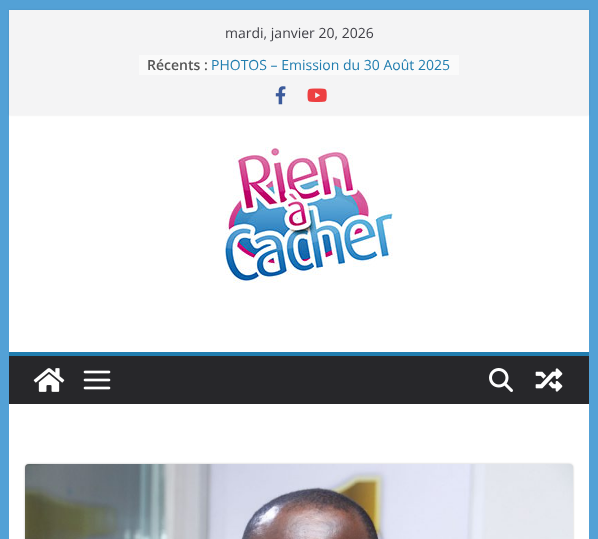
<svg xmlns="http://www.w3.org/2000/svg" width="598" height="539">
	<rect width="100%" height="100%" fill="#53A1D6" />
	<rect x="9" y="115" width="580" height="237" fill="#FFFFFF" />
	<rect x="9" y="10" width="580" height="105" fill="#000000" fill-opacity="0.1" filter="blur(1px)" />
	<rect x="9" y="10" width="580" height="105" fill="#F4F4F5" />
	<text x="225" y="38" font-family="Open Sans" font-size="14" fill="#3F3F46">mardi, janvier 20, 2026</text>
	<rect x="139" y="55" width="320" height="20" fill="#FAFAFA" />
	<text x="147" y="70" font-family="Open Sans" font-size="14" font-weight="600" fill="#555555">Récents :</text>
	<text x="211" y="70" font-family="Open Sans" font-size="14" fill="#207DAF">PHOTOS – Emission du 30 Août 2025</text>
	<image x="275" y="86" width="11" height="19" href="assets/img1.png" />
	<image x="307" y="88" width="20" height="14" href="assets/img2.png" />
	<image x="225" y="147" width="168" height="136" href="assets/img3.png" />
	<rect x="9" y="356" width="580" height="48" fill="#27272A" />
	<rect x="9" y="352" width="580" height="4" fill="#207DAF" />
	<image x="33" y="368" width="32" height="24" href="assets/img4.png" />
	<image x="83" y="370" width="28" height="20" href="assets/img5.png" />
	<image x="489" y="368" width="24" height="24" href="assets/img6.png" />
	<image x="535" y="368" width="28" height="24" href="assets/img7.png" />
	<rect x="9" y="404" width="580" height="135" fill="#FFFFFF" />
	<rect x="25" y="464" width="548" height="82" rx="4" fill="#000000" fill-opacity="0.24" filter="blur(1px)" />
	<image x="25" y="464" width="548" height="75" href="assets/img8.png" />
</svg>
